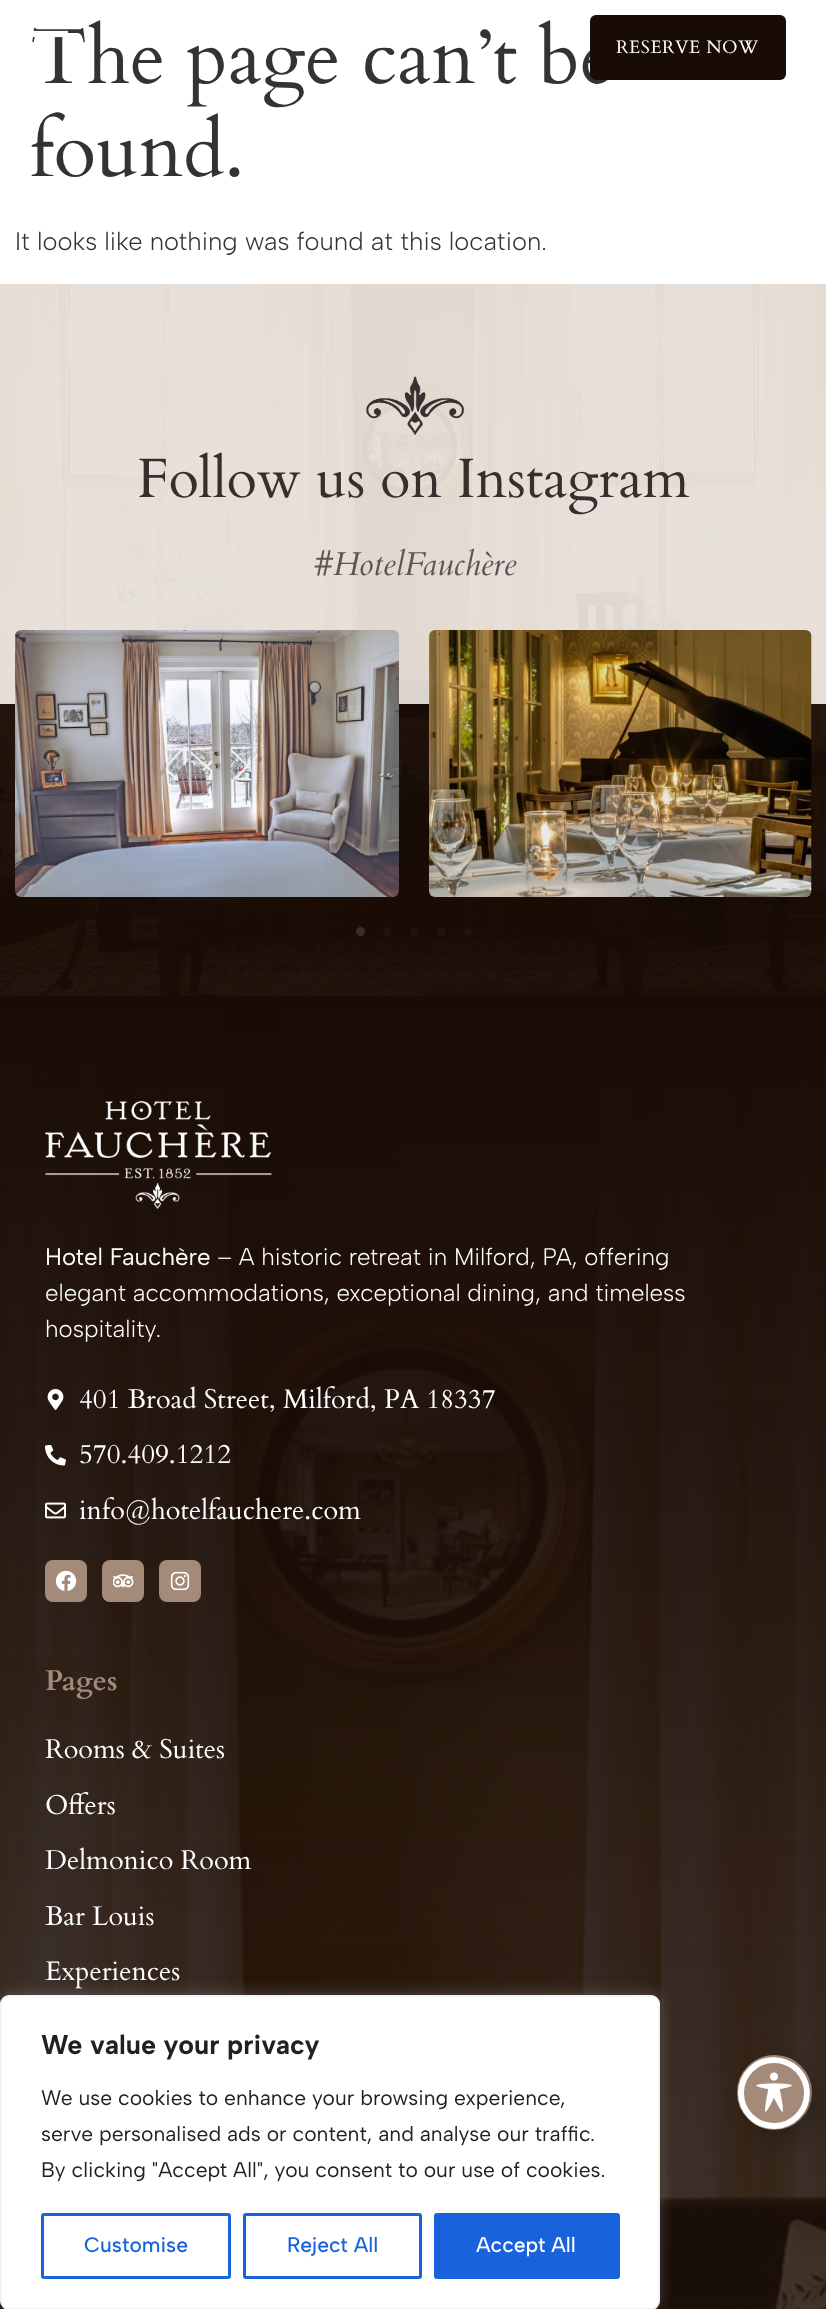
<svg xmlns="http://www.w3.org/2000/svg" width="826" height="2309">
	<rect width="100%" height="100%" fill="#FFFFFF" />
	<g font-family="Cardo" font-size="78" fill="#333333">
		<text x="30" y="83">The page can’t be</text>
		<text x="30" y="176">found.</text>
	</g>
	<text x="15" y="250" font-family="Albert Sans" font-size="25.5" font-weight="300" fill="#333333">It looks like nothing was found at this location.</text>
	<rect x="32" y="31" width="36" height="6" fill="#FFFFFF" />
	<path d="M22.5 31H67.5V37H22.5Z" fill="none" stroke="#FFFFFF" stroke-width="0.2" stroke-linejoin="round" />
	<rect x="590" y="15" width="196" height="65" rx="6" fill="#190C06" />
	<text x="616" y="53" font-family="Cardo" font-size="18" letter-spacing="0.6" fill="#FFFFFF">RESERVE NOW</text>
	<rect x="0" y="284" width="826" height="420" fill="#E7E0DA" />
	<rect x="0" y="704" width="826" height="292" fill="#190C06" />
	<image x="0" y="284" width="826" height="712" href="assets/img1.png" />
	<image x="366" y="376" width="99" height="59" href="assets/img2.png" />
	<text x="137" y="497" font-family="Cardo" font-size="55.5" fill="#382F2D">Follow us on Instagram</text>
	<text x="311" y="575" font-family="Cardo" font-size="33" font-style="italic" fill="#5E5554">#HotelFauchère</text>
	<image x="15" y="630" width="384" height="267" href="assets/img3.png" />
	<image x="429" y="630" width="383" height="267" href="assets/img4.png" />
	<circle cx="360.5" cy="931.5" r="4.5" fill="#382F2D" />
	<circle cx="387.5" cy="931.5" r="4.5" fill="#21140E" />
	<circle cx="414.5" cy="931.5" r="4.5" fill="#21130E" />
	<circle cx="441.5" cy="931.5" r="4.5" fill="#21130E" />
	<circle cx="468.5" cy="931.5" r="4.5" fill="#21140E" />
	<image x="0" y="996" width="826" height="1313" href="assets/img5.png" />
	<image x="45" y="1101" width="227" height="108" href="assets/img6.png" />
	<text x="45" y="1265" font-family="Albert Sans" font-size="24" fill="#FFFFFF">Hotel Fauchère</text>
	<g font-family="Albert Sans" font-size="24" font-weight="300" fill="#FFFFFF">
		<text x="217" y="1265">– A historic retreat in Milford, PA, offering</text>
		<text x="45" y="1301">elegant accommodations, exceptional dining, and timeless</text>
		<text x="45" y="1337">hospitality.</text>
	</g>
	<image x="47" y="1389" width="17" height="21" href="assets/img7.png" />
	<text x="79" y="1408" font-family="Cardo" font-size="27" fill="#FFFFFF">401 Broad Street, Milford, PA 18337</text>
	<image x="45" y="1445" width="21" height="21" href="assets/img8.png" />
	<text x="79" y="1463" font-family="Cardo" font-size="27" fill="#FFFFFF">570.409.1212</text>
	<image x="45" y="1502" width="21" height="17" href="assets/img9.png" />
	<text x="79" y="1519" font-family="Cardo" font-size="27" fill="#FFFFFF">info@hotelfauchere.com</text>
	<rect x="45" y="1560" width="42" height="42" rx="8" fill="#A48A78" />
	<image x="56" y="1571" width="21" height="20" href="assets/img10.png" />
	<rect x="102" y="1560" width="42" height="42" rx="8" fill="#A48A78" />
	<image x="113" y="1574" width="21" height="14" href="assets/img11.png" />
	<rect x="159" y="1560" width="42" height="42" rx="8" fill="#A48A78" />
	<image x="170" y="1571" width="20" height="20" href="assets/img12.png" />
	<text x="45" y="1690" font-family="Cardo" font-size="28.5" font-weight="700" fill="#A48A78">Pages</text>
	<g font-family="Cardo" font-size="27" fill="#FFFFFF">
		<text x="45" y="1758">Rooms &amp; Suites</text>
		<text x="45" y="1814">Offers</text>
		<text x="45" y="1869">Delmonico Room</text>
		<text x="45" y="1925">Bar Louis</text>
		<text x="45" y="1980">Experiences</text>
	</g>
	<rect x="0" y="1994" width="660" height="315" rx="9" fill="#ACABAB" fill-opacity="0.3" filter="blur(7.5px)" />
	<rect x="1" y="1996" width="658" height="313" rx="8" fill="#FFFFFF" stroke="#F4F4F4" stroke-width="2" />
	<text x="41" y="2054" font-family="Albert Sans" font-size="27" font-weight="700" fill="#212121">We value your privacy</text>
	<g font-family="Albert Sans" font-size="21" fill="#212121">
		<text x="41" y="2105">We use cookies to enhance your browsing experience,</text>
		<text x="41" y="2141">serve personalised ads or content, and analyse our traffic.</text>
		<text x="41" y="2177">By clicking "Accept All", you consent to our use of cookies.</text>
	</g>
	<rect x="42.5" y="2214.5" width="187" height="63" rx="1.5" fill="none" stroke="#1863DC" stroke-width="3" />
	<text x="84" y="2252" font-family="Albert Sans" font-size="21" font-weight="500" fill="#1863DC">Customise</text>
	<rect x="244.5" y="2214.5" width="176" height="63" rx="1.5" fill="none" stroke="#1863DC" stroke-width="3" />
	<text x="287" y="2252" font-family="Albert Sans" font-size="21" font-weight="500" fill="#1863DC">Reject All</text>
	<rect x="435.5" y="2214.5" width="183" height="63" rx="1.5" fill="#1863DC" stroke="#1863DC" stroke-width="3" />
	<text x="476" y="2252" font-family="Albert Sans" font-size="21" font-weight="500" fill="#FFFFFF">Accept All</text>
	<circle cx="774.5" cy="2092.5" r="36.5" fill="none" stroke="#A48A78" stroke-width="2" />
	<rect x="747" y="2069" width="72" height="72" rx="36" fill="#000000" fill-opacity="0.2" filter="blur(12px)" />
	<circle cx="774" cy="2093" r="33" fill="#A48A78" stroke="#FFFFFF" stroke-width="6" />
	<image x="756" y="2072" width="36" height="40" href="assets/img13.png" />
</svg>
